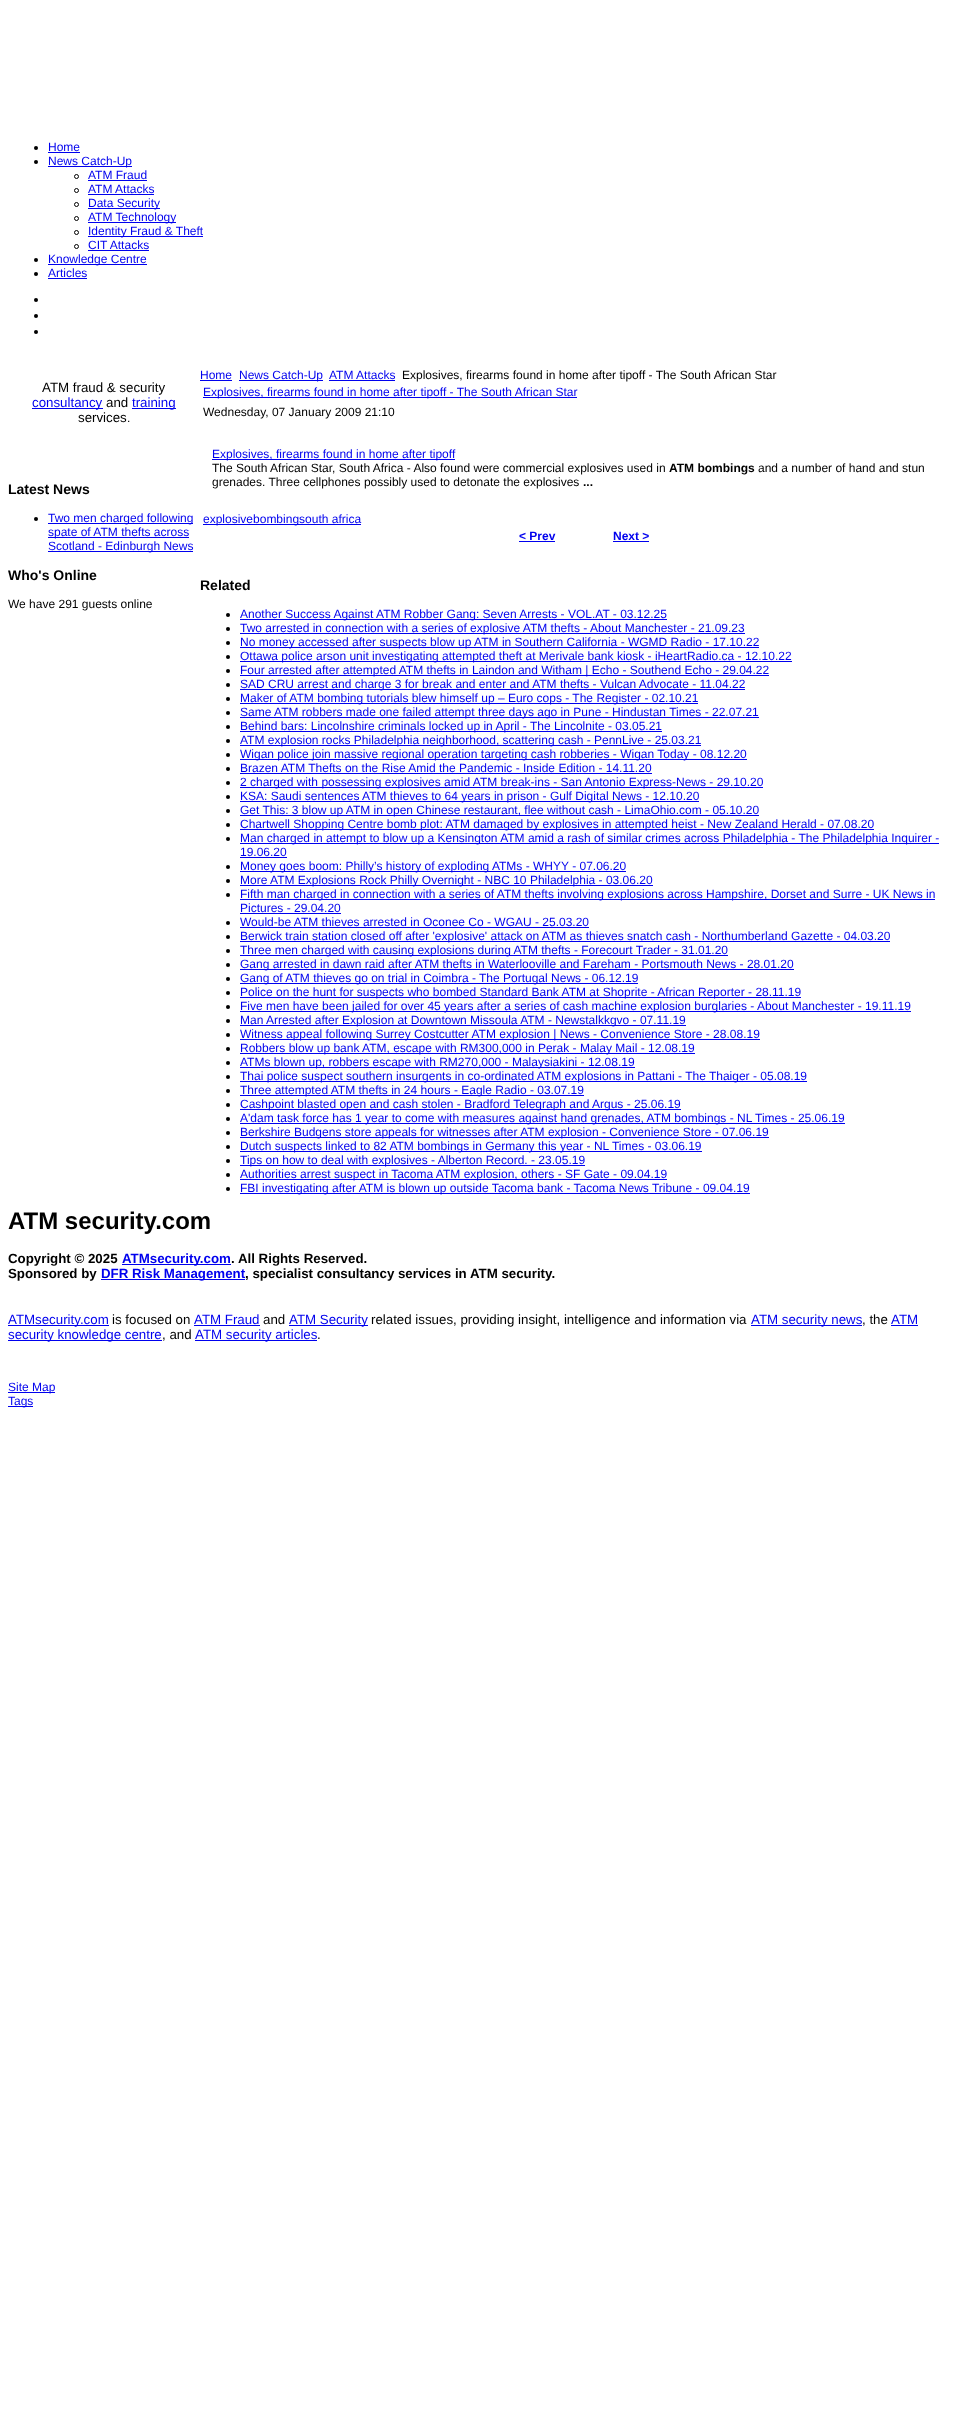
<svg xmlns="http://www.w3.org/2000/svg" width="978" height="2411">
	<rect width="100%" height="100%" fill="#FFFFFF" />
	<circle cx="36" cy="148" r="2" fill="#000000" />
	<text x="48" y="151" font-family="Liberation Sans" font-size="12" fill="#0000EE">Home</text>
	<rect x="48" y="152" width="32" height="1" fill="#0000EE" />
	<circle cx="36" cy="162" r="2" fill="#000000" />
	<rect x="48" y="166" width="84" height="1" fill="#0000EE" />
	<text x="48" y="165" font-family="Liberation Sans" font-size="12" fill="#0000EE">News Catch-Up</text>
	<circle cx="76.5" cy="176.5" r="2" fill="none" stroke="#000000" />
	<text x="88" y="179" font-family="Liberation Sans" font-size="12" fill="#0000EE">ATM Fraud</text>
	<rect x="88" y="180" width="59" height="1" fill="#0000EE" />
	<circle cx="76.5" cy="190.5" r="2" fill="none" stroke="#000000" />
	<text x="88" y="193" font-family="Liberation Sans" font-size="12" fill="#0000EE">ATM Attacks</text>
	<rect x="88" y="194" width="66" height="1" fill="#0000EE" />
	<circle cx="76.5" cy="204.5" r="2" fill="none" stroke="#000000" />
	<rect x="88" y="208" width="72" height="1" fill="#0000EE" />
	<text x="88" y="207" font-family="Liberation Sans" font-size="12" fill="#0000EE">Data Security</text>
	<circle cx="76.5" cy="218.5" r="2" fill="none" stroke="#000000" />
	<rect x="88" y="222" width="88" height="1" fill="#0000EE" />
	<text x="88" y="221" font-family="Liberation Sans" font-size="12" fill="#0000EE">ATM Technology</text>
	<circle cx="76.5" cy="232.5" r="2" fill="none" stroke="#000000" />
	<rect x="88" y="236" width="115" height="1" fill="#0000EE" />
	<text x="88" y="235" font-family="Liberation Sans" font-size="12" fill="#0000EE">Identity Fraud &amp; Theft</text>
	<circle cx="76.5" cy="246.5" r="2" fill="none" stroke="#000000" />
	<text x="88" y="249" font-family="Liberation Sans" font-size="12" fill="#0000EE">CIT Attacks</text>
	<rect x="88" y="250" width="61" height="1" fill="#0000EE" />
	<circle cx="36" cy="260" r="2" fill="#000000" />
	<rect x="48" y="264" width="99" height="1" fill="#0000EE" />
	<text x="48" y="263" font-family="Liberation Sans" font-size="12" fill="#0000EE">Knowledge Centre</text>
	<circle cx="36" cy="274" r="2" fill="#000000" />
	<text x="48" y="277" font-family="Liberation Sans" font-size="12" fill="#0000EE">Articles</text>
	<rect x="48" y="278" width="39" height="1" fill="#0000EE" />
	<circle cx="36" cy="300" r="2" fill="#000000" />
	<circle cx="36" cy="316" r="2" fill="#000000" />
	<circle cx="36" cy="332" r="2" fill="#000000" />
	<text x="42" y="392" font-family="Liberation Sans" font-size="13.3" fill="#000000">ATM fraud &amp; security</text>
	<rect x="32" y="408" width="71" height="1" fill="#0000EE" />
	<text x="32" y="407" font-family="Liberation Sans" font-size="13.3" fill="#0000EE">consultancy</text>
	<text x="106" y="407" font-family="Liberation Sans" font-size="13.3" fill="#000000">and</text>
	<rect x="132" y="408" width="44" height="1" fill="#0000EE" />
	<text x="132" y="407" font-family="Liberation Sans" font-size="13.3" fill="#0000EE">training</text>
	<text x="78" y="422" font-family="Liberation Sans" font-size="13.3" fill="#000000">services</text>
	<text x="127" y="422" font-family="Liberation Sans" font-size="12" fill="#000000">.</text>
	<text x="8" y="494" font-family="Liberation Sans" font-size="14" font-weight="700" fill="#000000">Latest News</text>
	<circle cx="36" cy="519" r="2" fill="#000000" />
	<rect x="48" y="523" width="145" height="1" fill="#0000EE" />
	<text x="48" y="522" font-family="Liberation Sans" font-size="12" fill="#0000EE">Two men charged following</text>
	<rect x="48" y="537" width="141" height="1" fill="#0000EE" />
	<text x="48" y="536" font-family="Liberation Sans" font-size="12" fill="#0000EE">spate of ATM thefts across</text>
	<rect x="48" y="551" width="145" height="1" fill="#0000EE" />
	<text x="48" y="550" font-family="Liberation Sans" font-size="12" fill="#0000EE">Scotland - Edinburgh News</text>
	<text x="8" y="580" font-family="Liberation Sans" font-size="14" font-weight="700" fill="#000000">Who's Online</text>
	<text x="8" y="608" font-family="Liberation Sans" font-size="12" fill="#000000">We have 291 guests online</text>
	<text x="200" y="379" font-family="Liberation Sans" font-size="12" fill="#0000EE">Home</text>
	<rect x="200" y="380" width="32" height="1" fill="#0000EE" />
	<rect x="239" y="380" width="84" height="1" fill="#0000EE" />
	<g font-family="Liberation Sans" font-size="12" fill="#0000EE">
		<text x="239" y="379">News Catch-Up</text>
		<text x="329" y="379">ATM Attacks</text>
	</g>
	<rect x="329" y="380" width="66" height="1" fill="#0000EE" />
	<text x="402" y="379" font-family="Liberation Sans" font-size="12" fill="#000000">Explosives, firearms found in home after tipoff - The South African Star</text>
	<rect x="203" y="397" width="374" height="1" fill="#0000EE" />
	<text x="203" y="396" font-family="Liberation Sans" font-size="12" fill="#0000EE">Explosives, firearms found in home after tipoff - The South African Star</text>
	<text x="203" y="416" font-family="Liberation Sans" font-size="12" fill="#000000">Wednesday, 07 January 2009 21:10</text>
	<rect x="212" y="459" width="243" height="1" fill="#0000EE" />
	<text x="212" y="458" font-family="Liberation Sans" font-size="12" fill="#0000EE">Explosives, firearms found in home after tipoff</text>
	<text x="212" y="472" font-family="Liberation Sans" font-size="12" fill="#000000">The South African Star, South Africa - Also found were commercial explosives used in</text>
	<text x="669" y="472" font-family="Liberation Sans" font-size="12" font-weight="700" fill="#000000">ATM bombings</text>
	<g font-family="Liberation Sans" font-size="12" fill="#000000">
		<text x="758" y="472">and a number of hand and stun</text>
		<text x="212" y="486">grenades. Three cellphones possibly used to detonate the explosives</text>
	</g>
	<text x="583" y="486" font-family="Liberation Sans" font-size="12" font-weight="700" fill="#000000">...</text>
	<rect x="203" y="524" width="158" height="1" fill="#0000EE" />
	<text x="203" y="523" font-family="Liberation Sans" font-size="12" fill="#0000EE">explosivebombingsouth africa</text>
	<text x="519" y="540" font-family="Liberation Sans" font-size="12" font-weight="700" fill="#0000EE">&lt; Prev</text>
	<rect x="519" y="541" width="36" height="1" fill="#0000EE" />
	<text x="613" y="540" font-family="Liberation Sans" font-size="12" font-weight="700" fill="#0000EE">Next &gt;</text>
	<rect x="613" y="541" width="36" height="1" fill="#0000EE" />
	<text x="200" y="590" font-family="Liberation Sans" font-size="14" font-weight="700" fill="#000000">Related</text>
	<circle cx="228" cy="615" r="2" fill="#000000" />
	<rect x="240" y="619" width="427" height="1" fill="#0000EE" />
	<text x="240" y="618" font-family="Liberation Sans" font-size="12" fill="#0000EE">Another Success Against ATM Robber Gang: Seven Arrests - VOL.AT - 03.12.25</text>
	<circle cx="228" cy="629" r="2" fill="#000000" />
	<rect x="240" y="633" width="505" height="1" fill="#0000EE" />
	<text x="240" y="632" font-family="Liberation Sans" font-size="12" fill="#0000EE">Two arrested in connection with a series of explosive ATM thefts - About Manchester - 21.09.23</text>
	<circle cx="228" cy="643" r="2" fill="#000000" />
	<rect x="240" y="647" width="519" height="1" fill="#0000EE" />
	<text x="240" y="646" font-family="Liberation Sans" font-size="12" fill="#0000EE">No money accessed after suspects blow up ATM in Southern California - WGMD Radio - 17.10.22</text>
	<circle cx="228" cy="657" r="2" fill="#000000" />
	<rect x="240" y="661" width="552" height="1" fill="#0000EE" />
	<text x="240" y="660" font-family="Liberation Sans" font-size="12" fill="#0000EE">Ottawa police arson unit investigating attempted theft at Merivale bank kiosk - iHeartRadio.ca - 12.10.22</text>
	<circle cx="228" cy="671" r="2" fill="#000000" />
	<rect x="240" y="675" width="529" height="1" fill="#0000EE" />
	<text x="240" y="674" font-family="Liberation Sans" font-size="12" fill="#0000EE">Four arrested after attempted ATM thefts in Laindon and Witham | Echo - Southend Echo - 29.04.22</text>
	<circle cx="228" cy="685" r="2" fill="#000000" />
	<rect x="240" y="689" width="505" height="1" fill="#0000EE" />
	<text x="240" y="688" font-family="Liberation Sans" font-size="12" fill="#0000EE">SAD CRU arrest and charge 3 for break and enter and ATM thefts - Vulcan Advocate - 11.04.22</text>
	<circle cx="228" cy="699" r="2" fill="#000000" />
	<rect x="240" y="703" width="458" height="1" fill="#0000EE" />
	<text x="240" y="702" font-family="Liberation Sans" font-size="12" fill="#0000EE">Maker of ATM bombing tutorials blew himself up – Euro cops - The Register - 02.10.21</text>
	<circle cx="228" cy="713" r="2" fill="#000000" />
	<rect x="240" y="717" width="519" height="1" fill="#0000EE" />
	<text x="240" y="716" font-family="Liberation Sans" font-size="12" fill="#0000EE">Same ATM robbers made one failed attempt three days ago in Pune - Hindustan Times - 22.07.21</text>
	<circle cx="228" cy="727" r="2" fill="#000000" />
	<rect x="240" y="731" width="422" height="1" fill="#0000EE" />
	<text x="240" y="730" font-family="Liberation Sans" font-size="12" fill="#0000EE">Behind bars: Lincolnshire criminals locked up in April - The Lincolnite - 03.05.21</text>
	<circle cx="228" cy="741" r="2" fill="#000000" />
	<rect x="240" y="745" width="461" height="1" fill="#0000EE" />
	<text x="240" y="744" font-family="Liberation Sans" font-size="12" fill="#0000EE">ATM explosion rocks Philadelphia neighborhood, scattering cash - PennLive - 25.03.21</text>
	<circle cx="228" cy="755" r="2" fill="#000000" />
	<rect x="240" y="759" width="507" height="1" fill="#0000EE" />
	<text x="240" y="758" font-family="Liberation Sans" font-size="12" fill="#0000EE">Wigan police join massive regional operation targeting cash robberies - Wigan Today - 08.12.20</text>
	<circle cx="228" cy="769" r="2" fill="#000000" />
	<text x="240" y="772" font-family="Liberation Sans" font-size="12" fill="#0000EE">Brazen ATM Thefts on the Rise Amid the Pandemic - Inside Edition - 14.11.20</text>
	<rect x="240" y="773" width="412" height="1" fill="#0000EE" />
	<circle cx="228" cy="783" r="2" fill="#000000" />
	<rect x="240" y="787" width="523" height="1" fill="#0000EE" />
	<text x="240" y="786" font-family="Liberation Sans" font-size="12" fill="#0000EE">2 charged with possessing explosives amid ATM break-ins - San Antonio Express-News - 29.10.20</text>
	<circle cx="228" cy="797" r="2" fill="#000000" />
	<rect x="240" y="801" width="459" height="1" fill="#0000EE" />
	<text x="240" y="800" font-family="Liberation Sans" font-size="12" fill="#0000EE">KSA: Saudi sentences ATM thieves to 64 years in prison - Gulf Digital News - 12.10.20</text>
	<circle cx="228" cy="811" r="2" fill="#000000" />
	<rect x="240" y="815" width="519" height="1" fill="#0000EE" />
	<text x="240" y="814" font-family="Liberation Sans" font-size="12" fill="#0000EE">Get This: 3 blow up ATM in open Chinese restaurant, flee without cash - LimaOhio.com - 05.10.20</text>
	<circle cx="228" cy="825" r="2" fill="#000000" />
	<rect x="240" y="829" width="634" height="1" fill="#0000EE" />
	<text x="240" y="828" font-family="Liberation Sans" font-size="12" fill="#0000EE">Chartwell Shopping Centre bomb plot: ATM damaged by explosives in attempted heist - New Zealand Herald - 07.08.20</text>
	<circle cx="228" cy="839" r="2" fill="#000000" />
	<rect x="240" y="843" width="699" height="1" fill="#0000EE" />
	<g font-family="Liberation Sans" font-size="12" fill="#0000EE">
		<text x="240" y="842">Man charged in attempt to blow up a Kensington ATM amid a rash of similar crimes across Philadelphia - The Philadelphia Inquirer -</text>
		<text x="240" y="856">19.06.20</text>
	</g>
	<rect x="240" y="857" width="47" height="1" fill="#0000EE" />
	<circle cx="228" cy="867" r="2" fill="#000000" />
	<rect x="240" y="871" width="386" height="1" fill="#0000EE" />
	<text x="240" y="870" font-family="Liberation Sans" font-size="12" fill="#0000EE">Money goes boom: Philly’s history of exploding ATMs - WHYY - 07.06.20</text>
	<circle cx="228" cy="881" r="2" fill="#000000" />
	<rect x="240" y="885" width="413" height="1" fill="#0000EE" />
	<text x="240" y="884" font-family="Liberation Sans" font-size="12" fill="#0000EE">More ATM Explosions Rock Philly Overnight - NBC 10 Philadelphia - 03.06.20</text>
	<circle cx="228" cy="895" r="2" fill="#000000" />
	<rect x="240" y="899" width="695" height="1" fill="#0000EE" />
	<g font-family="Liberation Sans" font-size="12" fill="#0000EE">
		<text x="240" y="898">Fifth man charged in connection with a series of ATM thefts involving explosions across Hampshire, Dorset and Surre - UK News in</text>
		<text x="240" y="912">Pictures - 29.04.20</text>
	</g>
	<rect x="240" y="913" width="101" height="1" fill="#0000EE" />
	<circle cx="228" cy="923" r="2" fill="#000000" />
	<text x="240" y="926" font-family="Liberation Sans" font-size="12" fill="#0000EE">Would-be ATM thieves arrested in Oconee Co - WGAU - 25.03.20</text>
	<rect x="240" y="927" width="349" height="1" fill="#0000EE" />
	<circle cx="228" cy="937" r="2" fill="#000000" />
	<rect x="240" y="941" width="650" height="1" fill="#0000EE" />
	<text x="240" y="940" font-family="Liberation Sans" font-size="12" fill="#0000EE">Berwick train station closed off after 'explosive' attack on ATM as thieves snatch cash - Northumberland Gazette - 04.03.20</text>
	<circle cx="228" cy="951" r="2" fill="#000000" />
	<rect x="240" y="955" width="488" height="1" fill="#0000EE" />
	<text x="240" y="954" font-family="Liberation Sans" font-size="12" fill="#0000EE">Three men charged with causing explosions during ATM thefts - Forecourt Trader - 31.01.20</text>
	<circle cx="228" cy="965" r="2" fill="#000000" />
	<rect x="240" y="969" width="554" height="1" fill="#0000EE" />
	<text x="240" y="968" font-family="Liberation Sans" font-size="12" fill="#0000EE">Gang arrested in dawn raid after ATM thefts in Waterlooville and Fareham - Portsmouth News - 28.01.20</text>
	<circle cx="228" cy="979" r="2" fill="#000000" />
	<rect x="240" y="983" width="398" height="1" fill="#0000EE" />
	<text x="240" y="982" font-family="Liberation Sans" font-size="12" fill="#0000EE">Gang of ATM thieves go on trial in Coimbra - The Portugal News - 06.12.19</text>
	<circle cx="228" cy="993" r="2" fill="#000000" />
	<rect x="240" y="997" width="561" height="1" fill="#0000EE" />
	<text x="240" y="996" font-family="Liberation Sans" font-size="12" fill="#0000EE">Police on the hunt for suspects who bombed Standard Bank ATM at Shoprite - African Reporter - 28.11.19</text>
	<circle cx="228" cy="1007" r="2" fill="#000000" />
	<rect x="240" y="1011" width="671" height="1" fill="#0000EE" />
	<text x="240" y="1010" font-family="Liberation Sans" font-size="12" fill="#0000EE">Five men have been jailed for over 45 years after a series of cash machine explosion burglaries - About Manchester - 19.11.19</text>
	<circle cx="228" cy="1021" r="2" fill="#000000" />
	<rect x="240" y="1025" width="446" height="1" fill="#0000EE" />
	<text x="240" y="1024" font-family="Liberation Sans" font-size="12" fill="#0000EE">Man Arrested after Explosion at Downtown Missoula ATM - Newstalkkgvo - 07.11.19</text>
	<circle cx="228" cy="1035" r="2" fill="#000000" />
	<rect x="240" y="1039" width="520" height="1" fill="#0000EE" />
	<text x="240" y="1038" font-family="Liberation Sans" font-size="12" fill="#0000EE">Witness appeal following Surrey Costcutter ATM explosion | News - Convenience Store - 28.08.19</text>
	<circle cx="228" cy="1049" r="2" fill="#000000" />
	<rect x="240" y="1053" width="455" height="1" fill="#0000EE" />
	<text x="240" y="1052" font-family="Liberation Sans" font-size="12" fill="#0000EE">Robbers blow up bank ATM, escape with RM300,000 in Perak - Malay Mail - 12.08.19</text>
	<circle cx="228" cy="1063" r="2" fill="#000000" />
	<rect x="240" y="1067" width="395" height="1" fill="#0000EE" />
	<text x="240" y="1066" font-family="Liberation Sans" font-size="12" fill="#0000EE">ATMs blown up, robbers escape with RM270,000 - Malaysiakini - 12.08.19</text>
	<circle cx="228" cy="1077" r="2" fill="#000000" />
	<rect x="240" y="1081" width="567" height="1" fill="#0000EE" />
	<text x="240" y="1080" font-family="Liberation Sans" font-size="12" fill="#0000EE">Thai police suspect southern insurgents in co-ordinated ATM explosions in Pattani - The Thaiger - 05.08.19</text>
	<circle cx="228" cy="1091" r="2" fill="#000000" />
	<rect x="240" y="1095" width="344" height="1" fill="#0000EE" />
	<text x="240" y="1094" font-family="Liberation Sans" font-size="12" fill="#0000EE">Three attempted ATM thefts in 24 hours - Eagle Radio - 03.07.19</text>
	<circle cx="228" cy="1105" r="2" fill="#000000" />
	<rect x="240" y="1109" width="441" height="1" fill="#0000EE" />
	<text x="240" y="1108" font-family="Liberation Sans" font-size="12" fill="#0000EE">Cashpoint blasted open and cash stolen - Bradford Telegraph and Argus - 25.06.19</text>
	<circle cx="228" cy="1119" r="2" fill="#000000" />
	<rect x="240" y="1123" width="605" height="1" fill="#0000EE" />
	<text x="240" y="1122" font-family="Liberation Sans" font-size="12" fill="#0000EE">A'dam task force has 1 year to come with measures against hand grenades, ATM bombings - NL Times - 25.06.19</text>
	<circle cx="228" cy="1133" r="2" fill="#000000" />
	<rect x="240" y="1137" width="529" height="1" fill="#0000EE" />
	<text x="240" y="1136" font-family="Liberation Sans" font-size="12" fill="#0000EE">Berkshire Budgens store appeals for witnesses after ATM explosion - Convenience Store - 07.06.19</text>
	<circle cx="228" cy="1147" r="2" fill="#000000" />
	<rect x="240" y="1151" width="462" height="1" fill="#0000EE" />
	<text x="240" y="1150" font-family="Liberation Sans" font-size="12" fill="#0000EE">Dutch suspects linked to 82 ATM bombings in Germany this year - NL Times - 03.06.19</text>
	<circle cx="228" cy="1161" r="2" fill="#000000" />
	<rect x="240" y="1165" width="345" height="1" fill="#0000EE" />
	<text x="240" y="1164" font-family="Liberation Sans" font-size="12" fill="#0000EE">Tips on how to deal with explosives - Alberton Record. - 23.05.19</text>
	<circle cx="228" cy="1175" r="2" fill="#000000" />
	<rect x="240" y="1179" width="427" height="1" fill="#0000EE" />
	<text x="240" y="1178" font-family="Liberation Sans" font-size="12" fill="#0000EE">Authorities arrest suspect in Tacoma ATM explosion, others - SF Gate - 09.04.19</text>
	<circle cx="228" cy="1189" r="2" fill="#000000" />
	<rect x="240" y="1193" width="510" height="1" fill="#0000EE" />
	<text x="240" y="1192" font-family="Liberation Sans" font-size="12" fill="#0000EE">FBI investigating after ATM is blown up outside Tacoma bank - Tacoma News Tribune - 09.04.19</text>
	<text x="8" y="1229" font-family="Liberation Sans" font-size="24" font-weight="700" fill="#000000">ATM security.com</text>
	<text x="8" y="1263" font-family="Liberation Sans" font-size="13.3" font-weight="700" fill="#000000">Copyright © 2025</text>
	<rect x="122" y="1264" width="109" height="1" fill="#0000EE" />
	<text x="122" y="1263" font-family="Liberation Sans" font-size="13.3" font-weight="700" fill="#0000EE">ATMsecurity.com</text>
	<g font-family="Liberation Sans" font-size="13.3" font-weight="700" fill="#000000">
		<text x="231" y="1263">. All Rights Reserved.</text>
		<text x="8" y="1278">Sponsored by</text>
	</g>
	<rect x="101" y="1279" width="144" height="1" fill="#0000EE" />
	<text x="101" y="1278" font-family="Liberation Sans" font-size="13.3" font-weight="700" fill="#0000EE">DFR Risk Management</text>
	<text x="245" y="1278" font-family="Liberation Sans" font-size="13.3" font-weight="700" fill="#000000">, specialist consultancy services in ATM security.</text>
	<rect x="8" y="1325" width="101" height="1" fill="#0000EE" />
	<text x="8" y="1324" font-family="Liberation Sans" font-size="13.3" fill="#0000EE">ATMsecurity.com</text>
	<text x="112" y="1324" font-family="Liberation Sans" font-size="13.3" fill="#000000">is focused on</text>
	<text x="194" y="1324" font-family="Liberation Sans" font-size="13.3" fill="#0000EE">ATM Fraud</text>
	<rect x="194" y="1325" width="66" height="1" fill="#0000EE" />
	<text x="263" y="1324" font-family="Liberation Sans" font-size="13.3" fill="#000000">and</text>
	<rect x="289" y="1325" width="79" height="1" fill="#0000EE" />
	<text x="289" y="1324" font-family="Liberation Sans" font-size="13.3" fill="#0000EE">ATM Security</text>
	<text x="371" y="1324" font-family="Liberation Sans" font-size="13.3" fill="#000000">related issues, providing insight, intelligence and information via</text>
	<rect x="751" y="1325" width="111" height="1" fill="#0000EE" />
	<text x="751" y="1324" font-family="Liberation Sans" font-size="13.3" fill="#0000EE">ATM security news</text>
	<text x="862" y="1324" font-family="Liberation Sans" font-size="13.3" fill="#000000">, the</text>
	<text x="891" y="1324" font-family="Liberation Sans" font-size="13.3" fill="#0000EE">ATM</text>
	<rect x="891" y="1325" width="27" height="1" fill="#0000EE" />
	<rect x="8" y="1340" width="154" height="1" fill="#0000EE" />
	<text x="8" y="1339" font-family="Liberation Sans" font-size="13.3" fill="#0000EE">security knowledge centre</text>
	<text x="162" y="1339" font-family="Liberation Sans" font-size="13.3" fill="#000000">, and</text>
	<rect x="195" y="1340" width="122" height="1" fill="#0000EE" />
	<text x="195" y="1339" font-family="Liberation Sans" font-size="13.3" fill="#0000EE">ATM security articles</text>
	<text x="317" y="1339" font-family="Liberation Sans" font-size="13.3" fill="#000000">.</text>
	<rect x="8" y="1392" width="47" height="1" fill="#0000EE" />
	<text x="8" y="1391" font-family="Liberation Sans" font-size="12" fill="#0000EE">Site Map</text>
	<rect x="8" y="1406" width="25" height="1" fill="#0000EE" />
	<text x="8" y="1405" font-family="Liberation Sans" font-size="12" fill="#0000EE">Tags</text>
</svg>
